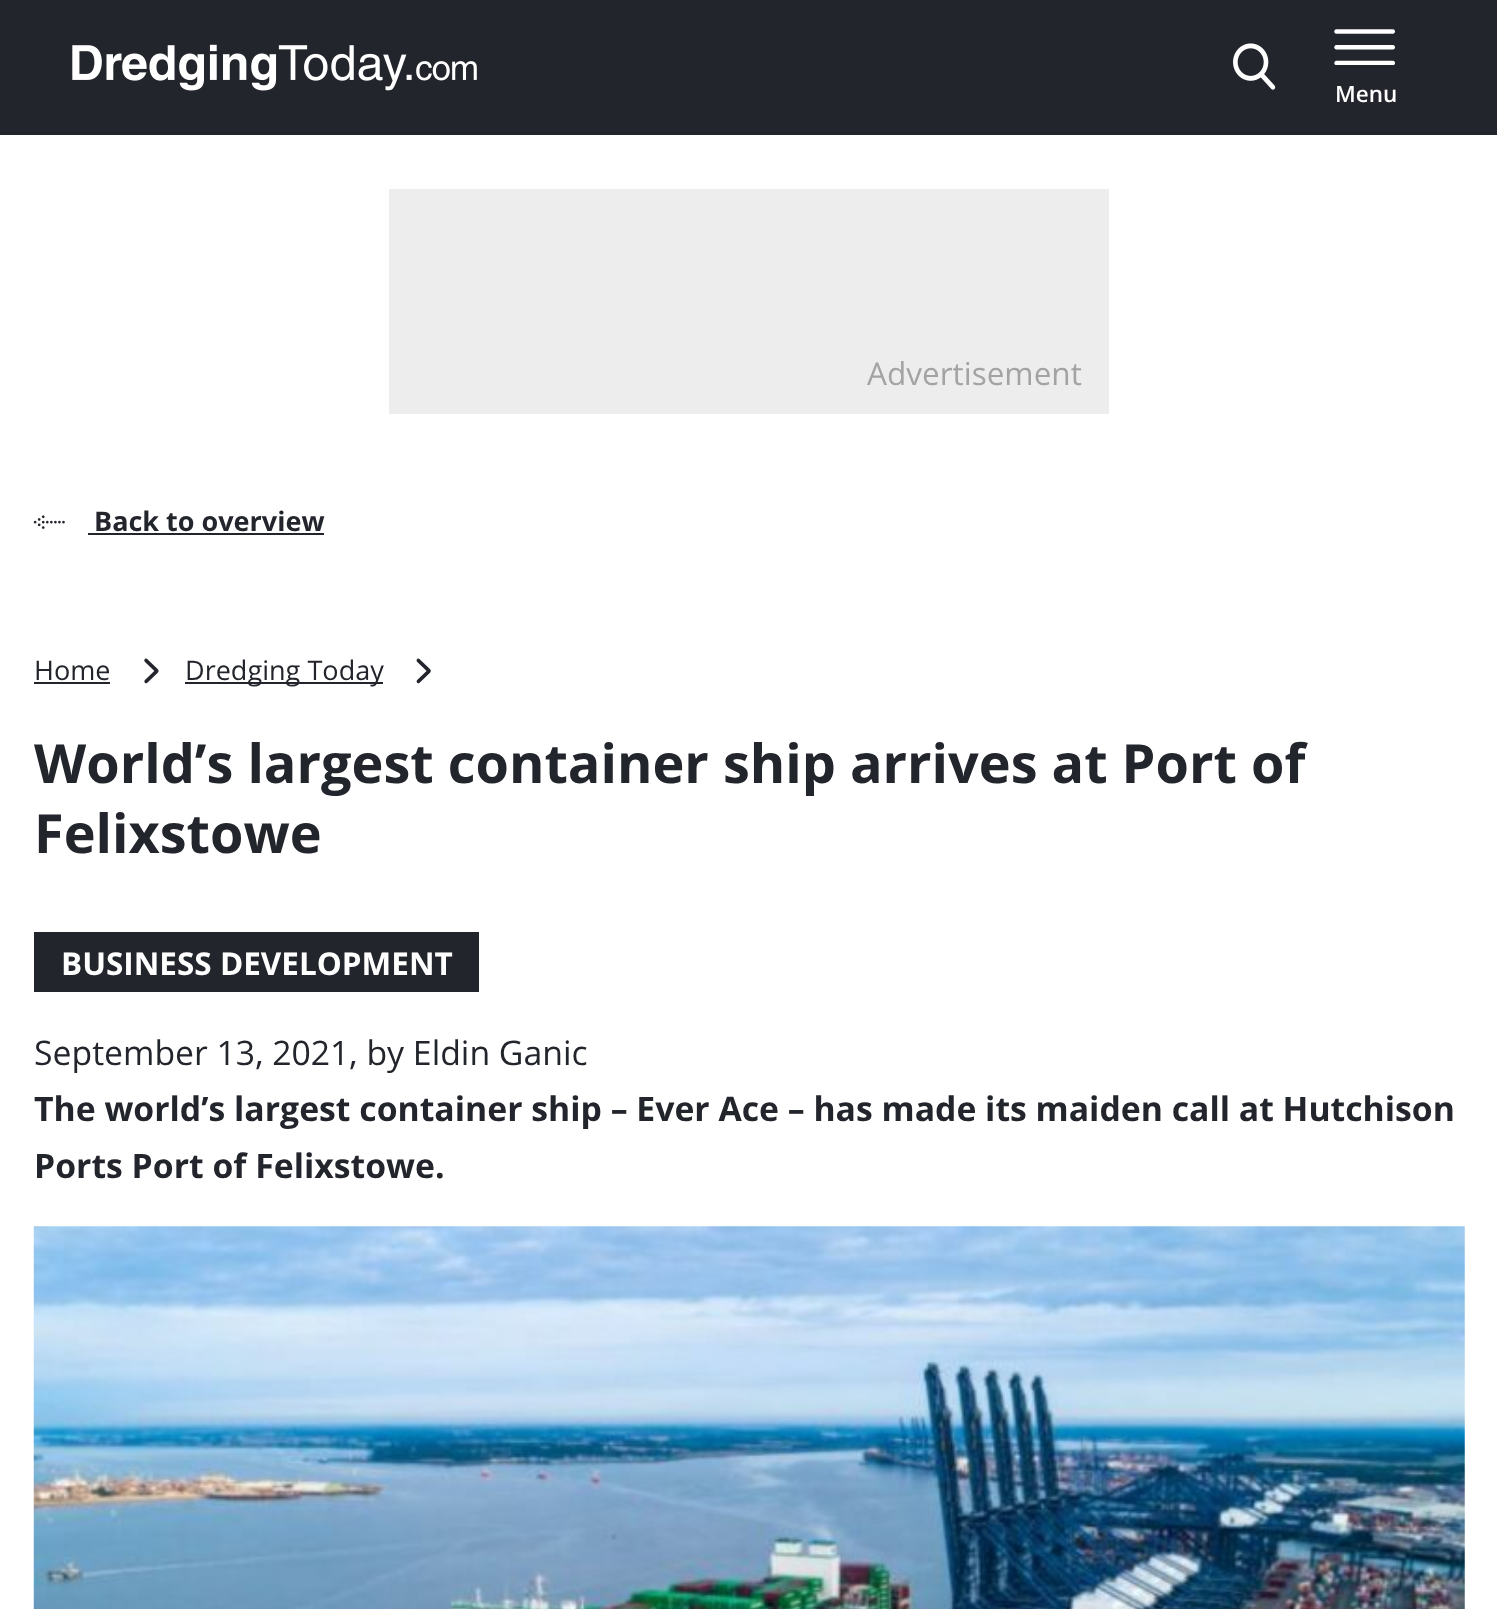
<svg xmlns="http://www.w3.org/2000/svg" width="1497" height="1609">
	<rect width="100%" height="100%" fill="#FFFFFF" />
	<rect x="0" y="0" width="1497" height="135" fill="#23252C" />
	<image x="72" y="44" width="405" height="47" href="assets/img1.png" />
	<image x="1233" y="43" width="43" height="47" href="assets/img2.png" />
	<image x="1334" y="29" width="61" height="36" href="assets/img3.png" />
	<text x="1335" y="102" font-family="Open Sans" font-size="22.5" font-weight="600" fill="#FFFFFF">Menu</text>
	<rect x="389" y="189" width="720" height="225" fill="#EDEDED" />
	<text x="867" y="385" font-family="Open Sans" font-size="31.5" fill="#A3A3A3">Advertisement</text>
	<image x="33" y="515" width="32" height="14" href="assets/img4.png" />
	<text x="94" y="531" font-family="Open Sans" font-size="27" font-weight="700" fill="#23252C">Back to overview</text>
	<rect x="88" y="533" width="236" height="2" fill="#23252C" />
	<text x="34" y="680" font-family="Open Sans" font-size="27" fill="#23252C">Home</text>
	<rect x="34" y="682" width="76" height="2" fill="#23252C" />
	<image x="144" y="658" width="15" height="26" href="assets/img5.png" />
	<rect x="185" y="682" width="198" height="2" fill="#23252C" />
	<text x="185" y="680" font-family="Open Sans" font-size="27" fill="#23252C">Dredging Today</text>
	<image x="416" y="658" width="15" height="26" href="assets/img6.png" />
	<g font-family="Open Sans" font-size="54" font-weight="700" fill="#23252C">
		<text x="34" y="783">World’s largest container ship arrives at Port of</text>
		<text x="34" y="853">Felixstowe</text>
	</g>
	<rect x="34" y="932" width="445" height="60" fill="#23252C" />
	<text x="61" y="975" font-family="Open Sans" font-size="31.5" font-weight="700" fill="#FFFFFF">BUSINESS DEVELOPMENT</text>
	<text x="34" y="1065" font-family="Open Sans" font-size="33.75" fill="#23252C">September 13, 2021, by Eldin Ganic</text>
	<g font-family="Open Sans" font-size="33.75" font-weight="700" fill="#23252C">
		<text x="34" y="1121">The world’s largest container ship – Ever Ace – has made its maiden call at Hutchison</text>
		<text x="34" y="1178">Ports Port of Felixstowe.</text>
	</g>
	<image x="33" y="1226" width="1432" height="383" href="assets/img7.png" />
</svg>
